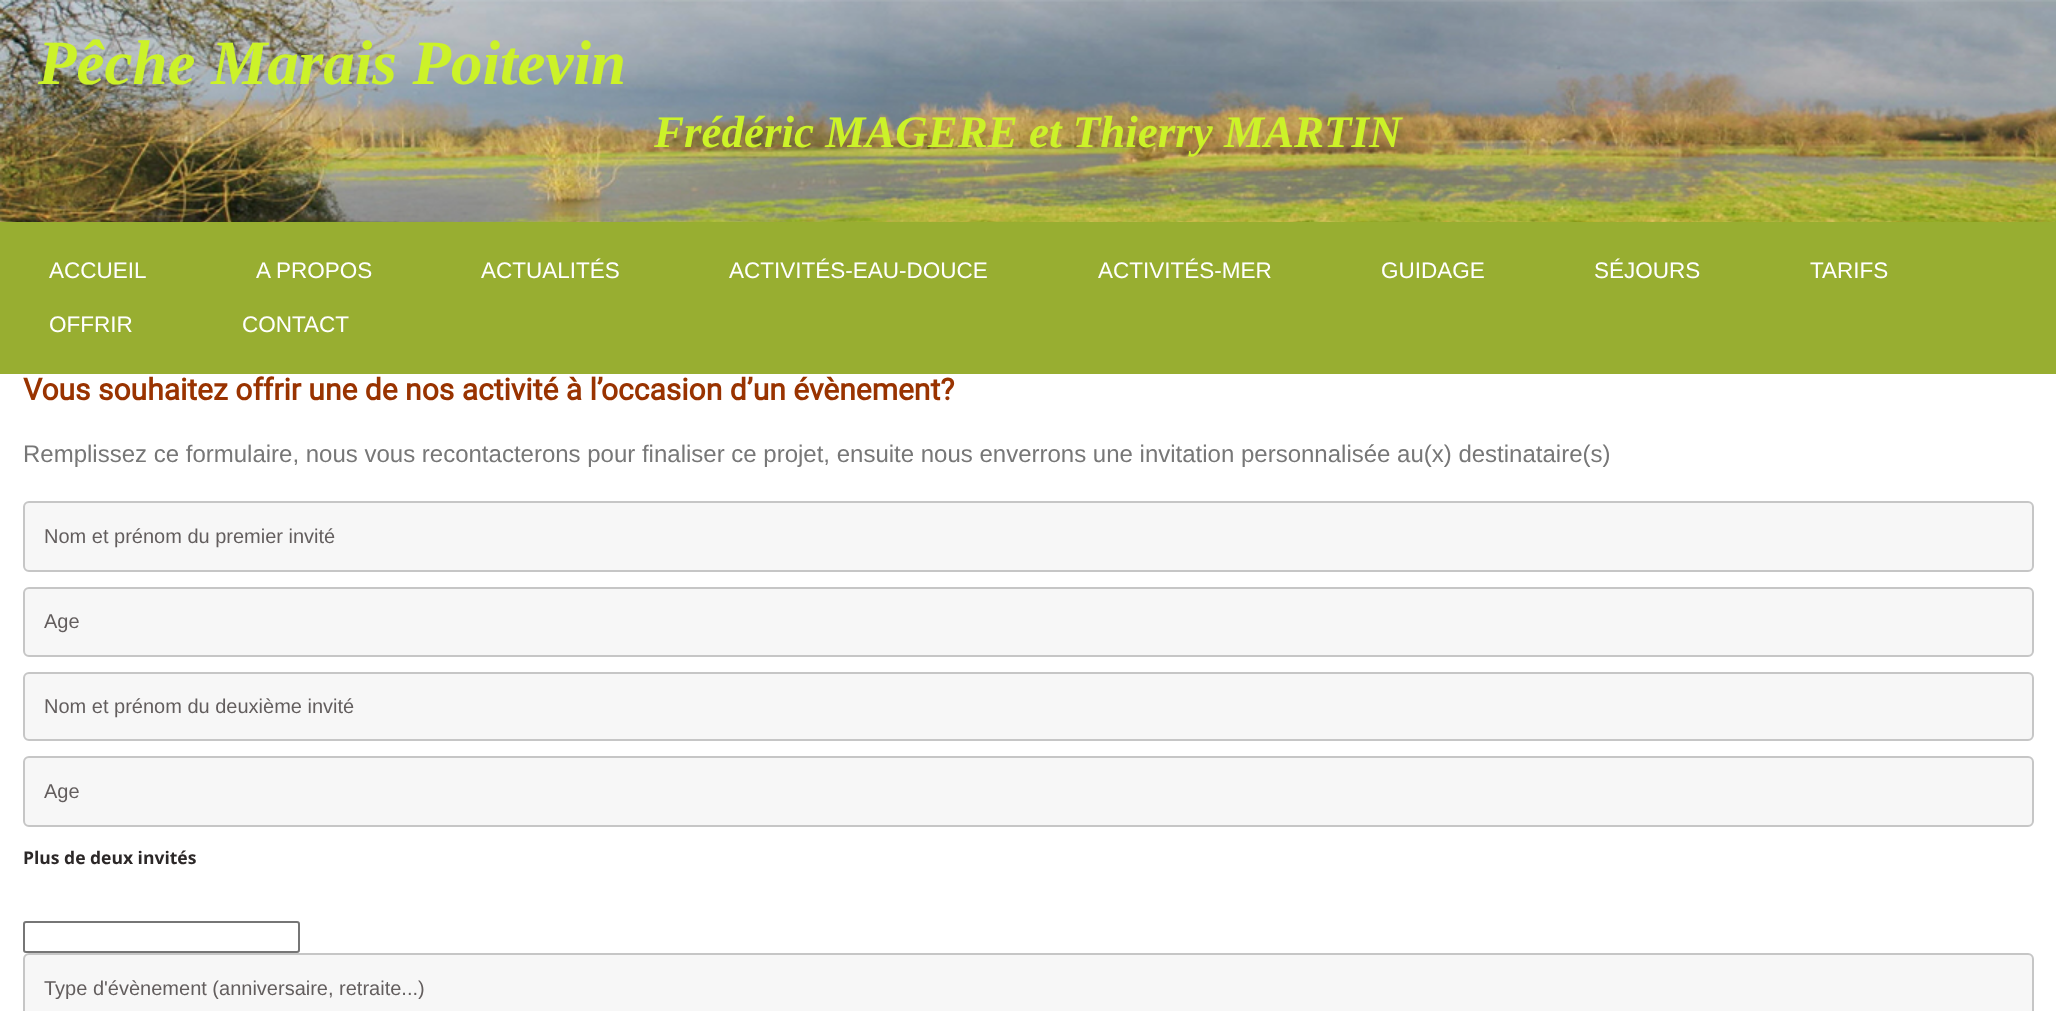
<svg xmlns="http://www.w3.org/2000/svg" width="2056" height="1011">
	<defs>
		<clipPath id="clip1"><rect x="44" y="977" width="1969" height="22" /></clipPath>
	</defs>
	<rect width="100%" height="100%" fill="#FFFFFF" />
	<image x="0" y="0" width="2056" height="222" href="assets/img1.png" />
	<text x="38" y="84" font-family="Liberation Serif" font-size="63" font-weight="700" font-style="italic" fill="#CCF229">Pêche Marais Poitevin</text>
	<text x="654" y="147" font-family="Liberation Serif" font-size="45" font-weight="700" font-style="italic" fill="#CCF229">Frédéric MAGERE et Thierry MARTIN</text>
	<rect x="0" y="222" width="2056" height="152" fill="#98AE31" />
	<g font-family="Liberation Sans" font-size="22.5" fill="#FFFFFF">
		<text x="49" y="278">ACCUEIL</text>
		<text x="256" y="278">A PROPOS</text>
		<text x="481" y="278">ACTUALITÉS</text>
		<text x="729" y="278">ACTIVITÉS-EAU-DOUCE</text>
		<text x="1098" y="278">ACTIVITÉS-MER</text>
		<text x="1381" y="278">GUIDAGE</text>
		<text x="1594" y="278">SÉJOURS</text>
		<text x="1810" y="278">TARIFS</text>
		<text x="49" y="332">OFFRIR</text>
		<text x="242" y="332">CONTACT</text>
	</g>
	<text x="23" y="400" font-family="Roboto" font-size="30" font-weight="700" fill="#993300">Vous souhaitez offrir une de nos activité à l’occasion d’un évènement?</text>
	<text x="23" y="462" font-family="Liberation Sans" font-size="24" fill="#777777">Remplissez ce formulaire, nous vous recontacterons pour finaliser ce projet, ensuite nous enverrons une invitation personnalisée au(x) destinataire(s)</text>
	<rect x="24" y="502" width="2009" height="69" rx="5" fill="#F7F7F7" stroke="#C6C6C6" stroke-width="2" />
	<text x="44" y="543" font-family="Liberation Sans" font-size="20" fill="#635E5E">Nom et prénom du premier invité</text>
	<rect x="24" y="588" width="2009" height="68" rx="5" fill="#F7F7F7" stroke="#C6C6C6" stroke-width="2" />
	<text x="44" y="628" font-family="Liberation Sans" font-size="20" fill="#635E5E">Age</text>
	<rect x="24" y="673" width="2009" height="67" rx="5" fill="#F7F7F7" stroke="#C6C6C6" stroke-width="2" />
	<text x="44" y="713" font-family="Liberation Sans" font-size="20" fill="#635E5E">Nom et prénom du deuxième invité</text>
	<rect x="24" y="757" width="2009" height="69" rx="5" fill="#F7F7F7" stroke="#C6C6C6" stroke-width="2" />
	<text x="44" y="798" font-family="Liberation Sans" font-size="20" fill="#635E5E">Age</text>
	<text x="23" y="864" font-family="Open Sans" font-size="17.5" font-weight="700" fill="#2C2828">Plus de deux invités</text>
	<rect x="24" y="922" width="275" height="30" rx="2" fill="none" stroke="#767676" stroke-width="2" />
	<rect x="24" y="954" width="2009" height="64" rx="5" fill="#F7F7F7" stroke="#C6C6C6" stroke-width="2" />
	<g clip-path="url(#clip1)">
		<text x="44" y="995" font-family="Liberation Sans" font-size="20" fill="#635E5E">Type d'évènement (anniversaire, retraite...)</text>
	</g>
</svg>
